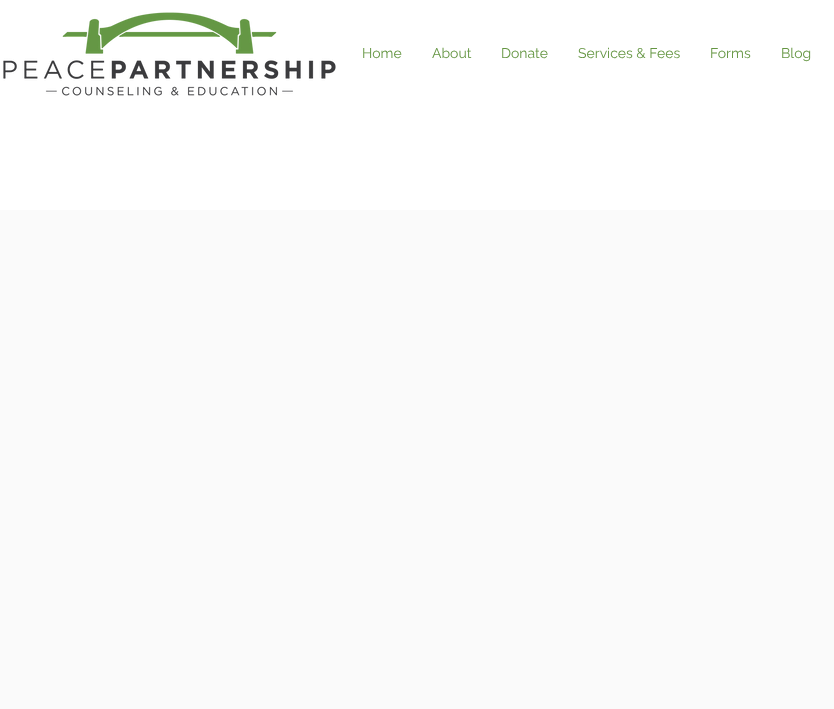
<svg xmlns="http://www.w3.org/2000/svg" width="834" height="709">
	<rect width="100%" height="100%" fill="#FFFFFF" />
	<image x="3" y="12" width="333" height="84" href="assets/img1.png" />
	<g font-family="Raleway" font-size="14" fill="#659643">
		<text x="362" y="58">Home</text>
		<text x="432" y="58">About</text>
		<text x="501" y="58">Donate</text>
		<text x="578" y="58">Services &amp; Fees</text>
		<text x="710" y="58">Forms</text>
		<text x="781" y="58">Blog</text>
	</g>
	<rect x="0" y="210" width="834" height="499" fill="#FAFAFA" />
</svg>
